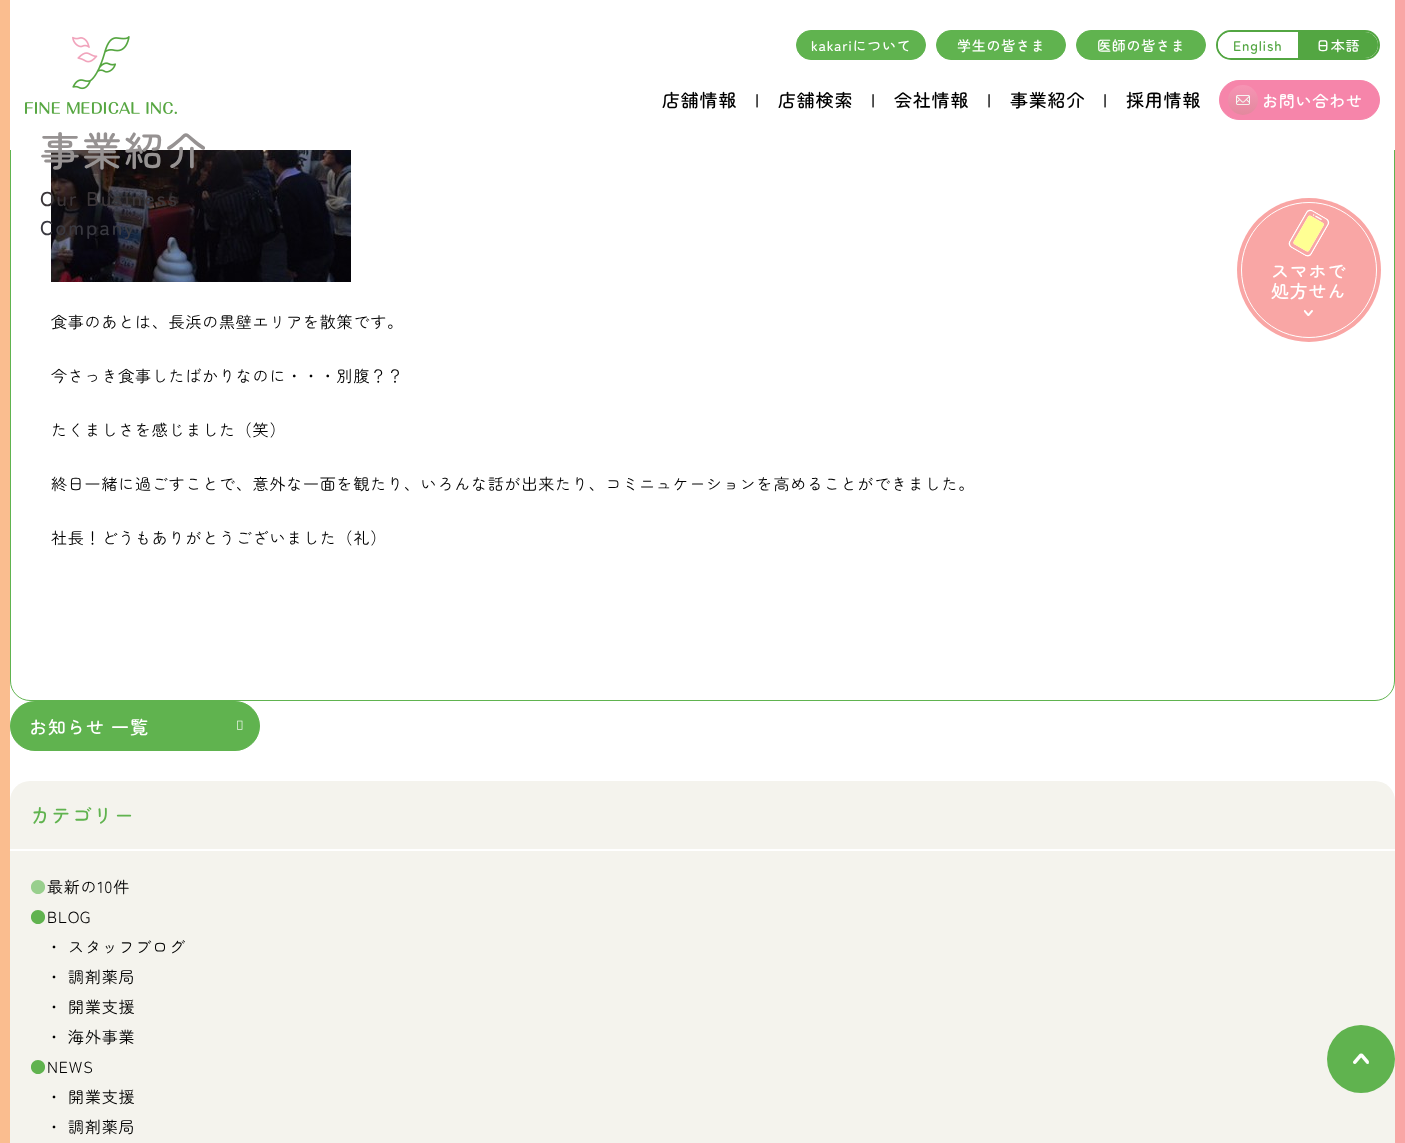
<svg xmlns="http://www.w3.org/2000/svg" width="1405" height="1143">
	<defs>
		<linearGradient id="g1" gradientUnits="userSpaceOnUse" x1="1243" y1="115" x2="1243" y2="85"><stop offset="0" stop-color="#53A642" stop-opacity="0.12" /><stop offset="1" stop-color="#FFFFFF" stop-opacity="0.12" /></linearGradient>
	</defs>
	<rect width="100%" height="100%" fill="#FFFFFF" />
	<rect x="1395" y="0" width="10" height="1143" fill="#F9A6A5" />
	<rect x="0" y="0" width="10" height="1143" fill="#FABD8F" />
	<rect x="10.5" y="-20.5" width="1384" height="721" rx="19.5" fill="none" stroke="#60B34F" />
	<rect x="10" y="0" width="1385" height="150" fill="#FFFFFF" />
	<image x="25" y="36" width="152" height="78" href="assets/img1.png" />
	<rect x="796.5" y="30.5" width="129" height="29" rx="14.5" fill="#60B34F" stroke="#60B34F" />
	<text x="811" y="51" font-family="Zen Maru Gothic" font-size="14" font-weight="500" letter-spacing="0.75" fill="#FFFFFF">kakariについて</text>
	<rect x="936.5" y="30.5" width="129" height="29" rx="14.5" fill="#60B34F" stroke="#60B34F" />
	<text x="957" y="51" font-family="Zen Maru Gothic" font-size="14" font-weight="500" letter-spacing="0.75" fill="#FFFFFF">学生の皆さま</text>
	<rect x="1076.5" y="30.5" width="129" height="29" rx="14.5" fill="#60B34F" stroke="#60B34F" />
	<text x="1097" y="51" font-family="Zen Maru Gothic" font-size="14" font-weight="500" letter-spacing="0.75" fill="#FFFFFF">医師の皆さま</text>
	<rect x="1217" y="31" width="162" height="28" rx="14" fill="none" stroke="#53A642" stroke-width="2" />
	<path d="M1231 32H1298V58H1231C1224 58 1218 52 1218 45C1218 38 1224 32 1231 32Z" fill="#FFFFFF" />
	<text x="1233" y="51" font-family="Zen Maru Gothic" font-size="14" font-weight="500" letter-spacing="0.8" fill="#53A642">English</text>
	<path d="M1298 32H1365C1372 32 1378 38 1378 45C1378 52 1372 58 1365 58H1298Z" fill="#53A642" />
	<text x="1316" y="51" font-family="Zen Maru Gothic" font-size="14" font-weight="500" letter-spacing="0.8" fill="#FFFFFF">日本語</text>
	<g font-family="Zen Maru Gothic" font-size="18" font-weight="500" letter-spacing="0.8" fill="#000000">
		<text x="871" y="107">|</text>
		<text x="894" y="107">会社情報</text>
	</g>
	<image x="51" y="150" width="300" height="132" href="assets/img5.png" />
	<text x="40" y="235" font-family="Zen Maru Gothic" font-size="20" font-weight="500" letter-spacing="2" fill="#393940">Company</text>
	<g font-family="Zen Maru Gothic" font-size="18" font-weight="500" letter-spacing="0.8" fill="#000000">
		<text x="987" y="107">|</text>
		<text x="1010" y="107">事業紹介</text>
	</g>
	<text x="40" y="166" font-family="Zen Maru Gothic" font-size="40" font-weight="500" letter-spacing="2" fill="#969292">事業紹介</text>
	<text x="40" y="206" font-family="Zen Maru Gothic" font-size="20" font-weight="500" letter-spacing="2" fill="#3A3538">Our Business</text>
	<g font-family="Zen Maru Gothic" font-size="18" font-weight="500" letter-spacing="0.8" fill="#000000">
		<text x="662" y="107">店舗情報</text>
		<text x="755" y="107">|</text>
		<text x="778" y="107">店舗検索</text>
		<text x="1103" y="107">|</text>
		<text x="1126" y="107">採用情報</text>
	</g>
	<rect x="1219.5" y="80.5" width="160" height="39" rx="19.5" fill="#F685AA" stroke="#F685AA" />
	<image x="1236" y="95" width="14" height="10" href="assets/img2.png" />
	<circle cx="1243" cy="100" r="15" fill="url(#g1)" />
	<text x="1262" y="107" font-family="Zen Maru Gothic" font-size="16" font-weight="500" letter-spacing="0.8" fill="#FFFFFF">お問い合わせ</text>
	<circle cx="1309" cy="270" r="72" fill="#F9A6A5" />
	<image x="1288" y="209" width="42" height="48" href="assets/img3.png" />
	<circle cx="1309" cy="270" r="67.5" fill="none" stroke="#FFFFFF" />
	<g font-family="Zen Maru Gothic" font-size="18" font-weight="500" letter-spacing="0.8" fill="#FFFFFF">
		<text x="1271" y="278">スマホで</text>
		<text x="1271" y="298">処方せん</text>
	</g>
	<image x="1304" y="310" width="9" height="6" href="assets/img4.png" />
	<g font-family="Zen Maru Gothic" font-size="16" letter-spacing="0.8" fill="#000000">
		<text x="51" y="328">食事のあとは、長浜の黒壁エリアを散策です。</text>
		<text x="51" y="382">今さっき食事したばかりなのに・・・別腹？？</text>
		<text x="51" y="436">たくましさを感じました（笑）</text>
		<text x="51" y="490">終日一緒に過ごすことで、意外な一面を観たり、いろんな話が出来たり、コミニュケーションを高めることができました。</text>
		<text x="51" y="544">社長！どうもありがとうございました（礼）</text>
	</g>
	<rect x="10.5" y="701.5" width="249" height="49" rx="24.5" fill="#60B34F" stroke="#60B34F" />
	<text x="29" y="734" font-family="Zen Maru Gothic" font-size="18" font-weight="500" letter-spacing="1" fill="#FFFFFF">お知らせ 一覧</text>
	<image x="237" y="720" width="6" height="10" href="assets/img6.png" />
	<rect x="10" y="781" width="1385" height="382" rx="20" fill="#F4F3ED" />
	<rect x="10" y="849" width="1385" height="2" fill="#FFFFFF" />
	<text x="30" y="823" font-family="Zen Maru Gothic" font-size="20" font-weight="500" letter-spacing="1" fill="#60B34F">カテゴリー</text>
	<text x="30" y="893" font-family="Zen Maru Gothic" font-size="16" letter-spacing="0.8" fill="#98CF8D">●</text>
	<text x="47" y="893" font-family="Zen Maru Gothic" font-size="16" letter-spacing="0.8" fill="#000000">最新の10件</text>
	<text x="30" y="923" font-family="Zen Maru Gothic" font-size="16" letter-spacing="0.8" fill="#60B34F">●</text>
	<g font-family="Zen Maru Gothic" font-size="16" letter-spacing="0.8" fill="#000000">
		<text x="47" y="923">BLOG</text>
		<text x="46" y="953">・ スタッフブログ</text>
		<text x="46" y="983">・ 調剤薬局</text>
		<text x="46" y="1013">・ 開業支援</text>
		<text x="46" y="1043">・ 海外事業</text>
	</g>
	<text x="30" y="1073" font-family="Zen Maru Gothic" font-size="16" letter-spacing="0.8" fill="#60B34F">●</text>
	<g font-family="Zen Maru Gothic" font-size="16" letter-spacing="0.8" fill="#000000">
		<text x="47" y="1073">NEWS</text>
		<text x="46" y="1103">・ 開業支援</text>
		<text x="46" y="1133">・ 調剤薬局</text>
	</g>
	<circle cx="1361" cy="1059" r="34" fill="#60B34F" />
	<image x="1353" y="1053" width="16" height="11" href="assets/img7.png" />
</svg>
